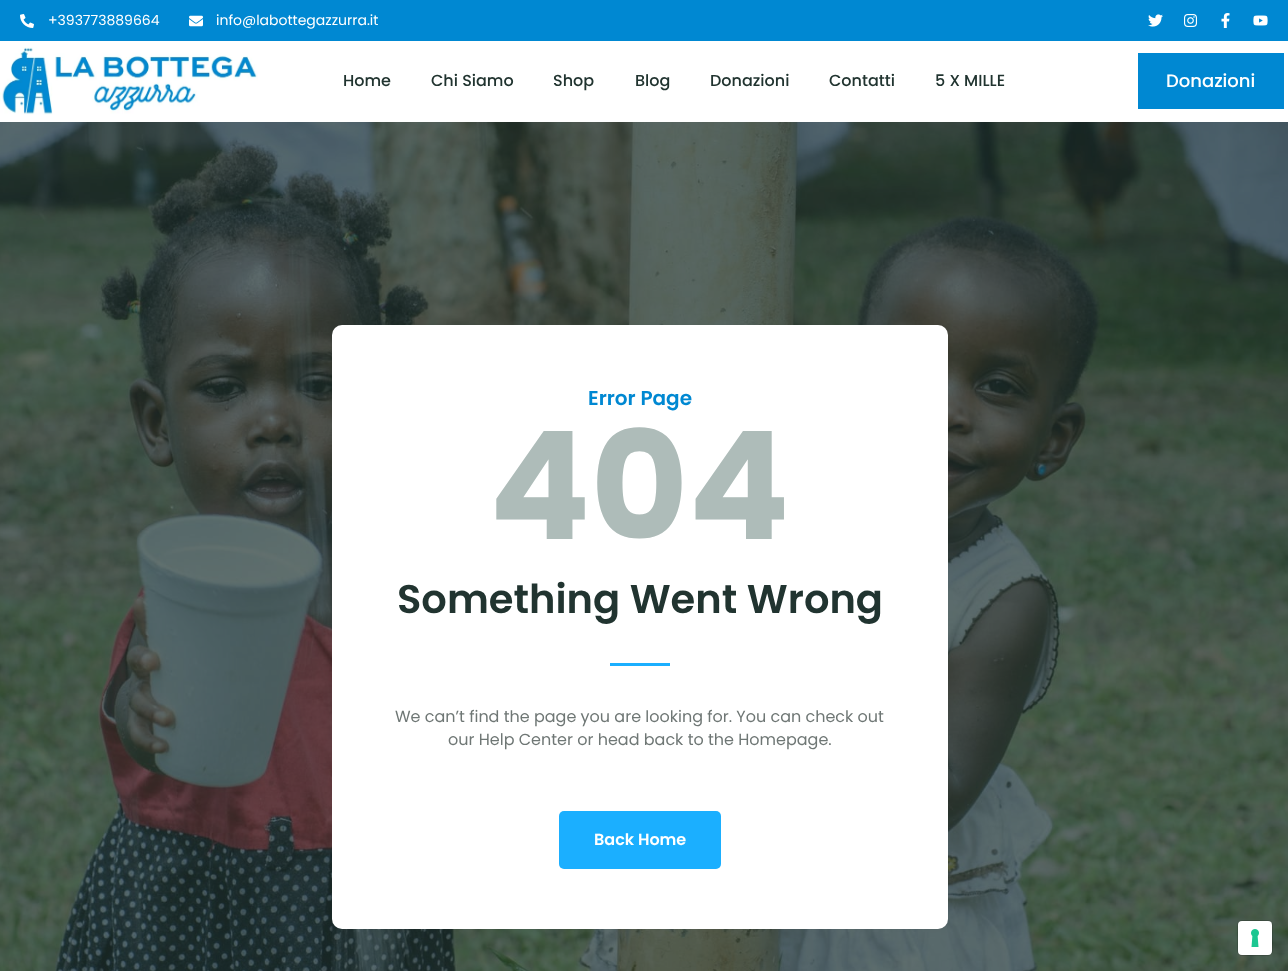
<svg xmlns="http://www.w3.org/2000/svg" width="1288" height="971">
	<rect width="100%" height="100%" fill="#FFFFFF" />
	<rect x="0" y="0" width="1288" height="41" fill="#0088D2" />
	<image x="20" y="14" width="14" height="14" href="assets/img1.png" />
	<text x="48" y="25" font-family="Poppins" font-size="14" fill="#FFFFFF">+393773889664</text>
	<image x="189" y="15" width="14" height="12" href="assets/img2.png" />
	<text x="216" y="25" font-family="Poppins" font-size="14" fill="#FFFFFF">info@labottegazzurra.it</text>
	<image x="1148" y="14" width="15" height="13" href="assets/img3.png" />
	<image x="1184" y="14" width="14" height="13" href="assets/img4.png" />
	<image x="1221" y="13" width="9" height="15" href="assets/img5.png" />
	<image x="1253" y="15" width="15" height="11" href="assets/img6.png" />
	<image x="0" y="47" width="258" height="68" href="assets/img7.png" />
	<g font-family="Poppins" font-size="16" font-weight="500" fill="#213430">
		<text x="343" y="86">Home</text>
		<text x="431" y="86">Chi Siamo</text>
		<text x="553" y="86">Shop</text>
		<text x="635" y="86">Blog</text>
		<text x="710" y="86">Donazioni</text>
		<text x="829" y="86">Contatti</text>
		<text x="935" y="86">5 X MILLE</text>
	</g>
	<rect x="1138" y="53" width="146" height="56" fill="#0088D2" />
	<text x="1166" y="87" font-family="Poppins" font-size="18" font-weight="500" fill="#FFFFFF">Donazioni</text>
	<image x="0" y="122" width="1288" height="849" href="assets/img8.png" />
	<rect x="332" y="325" width="616" height="604" rx="10" fill="#FFFFFF" />
	<text x="588" y="405" font-family="Poppins" font-size="20" font-weight="600" fill="#0088D2">Error Page</text>
	<text x="489" y="539" font-family="Poppins" font-size="150" font-weight="700" fill="#AEBCB9">404</text>
	<text x="397" y="613" font-family="Poppins" font-size="40" font-weight="600" fill="#213430">Something Went Wrong</text>
	<rect x="610" y="663" width="60" height="3" fill="#1BAFFF" />
	<g font-family="Poppins" font-size="16" fill="#6F7775">
		<text x="395" y="722">We can’t find the page you are looking for. You can check out</text>
		<text x="448" y="745">our Help Center or head back to the Homepage.</text>
	</g>
	<rect x="559" y="811" width="162" height="58" rx="5" fill="#1BAFFF" />
	<text x="594" y="845" font-family="Poppins" font-size="16" font-weight="600" fill="#FFFFFF">Back Home</text>
	<rect x="1237.5" y="920.5" width="35" height="35" rx="4.5" fill="none" stroke="#000000" stroke-opacity="0.15" />
	<rect x="1238" y="921" width="34" height="34" rx="4" fill="#FFFFFF" />
	<image x="1251" y="929" width="8" height="18" href="assets/img9.png" />
</svg>
